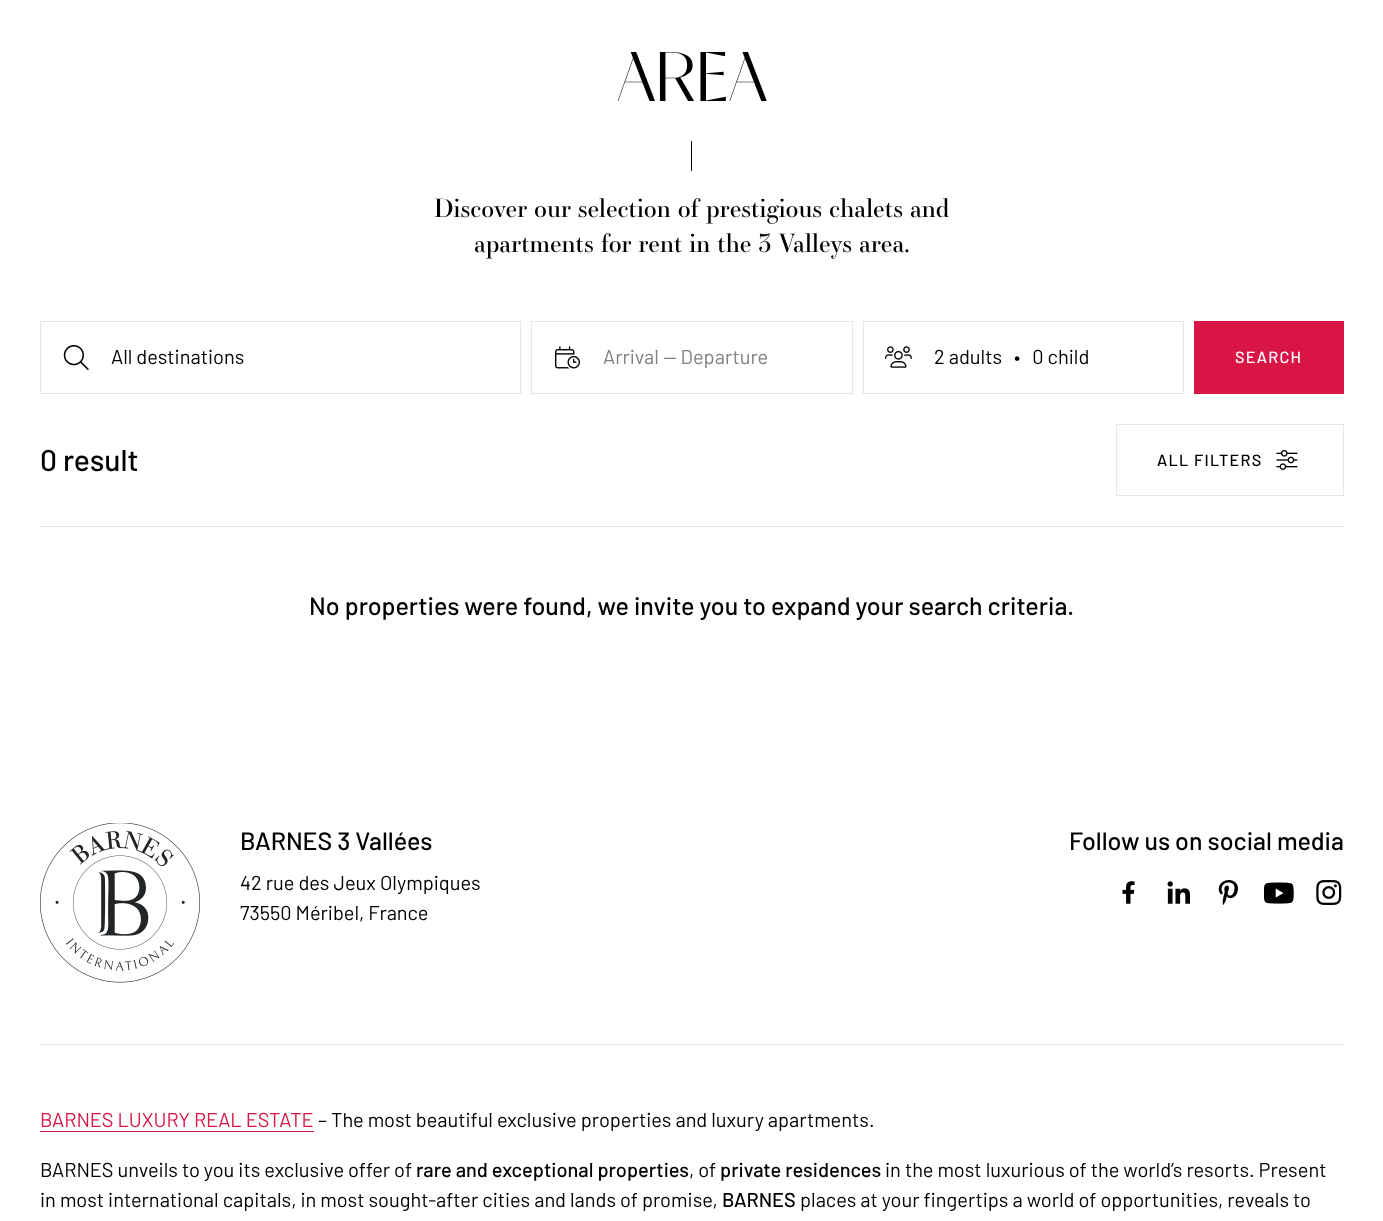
<svg xmlns="http://www.w3.org/2000/svg" width="1383" height="1221">
	<rect width="100%" height="100%" fill="#FFFFFF" />
	<text x="617" y="101" font-family="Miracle" font-size="70" fill="#000000">AREA</text>
	<rect x="691" y="141" width="1" height="30" fill="#000000" />
	<g font-family="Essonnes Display" font-size="25" fill="#000000">
		<text x="434" y="217">Discover our selection of prestigious chalets and</text>
		<text x="474" y="252">apartments for rent in the 3 Valleys area.</text>
	</g>
	<rect x="40" y="526" width="1304" height="1" fill="#E6E6E6" />
	<rect x="40.5" y="321.5" width="480" height="72" fill="none" stroke="#E6E6E6" />
	<image x="63" y="345" width="26" height="25" href="assets/img1.png" />
	<text x="111" y="364" font-family="Barlow" font-size="20" fill="#000000">All destinations</text>
	<rect x="531.5" y="321.5" width="321" height="72" fill="none" stroke="#E6E6E6" />
	<image x="555" y="346" width="25" height="23" href="assets/img2.png" />
	<text x="603" y="364" font-family="Barlow" font-size="20" fill="#808080">Arrival — Departure</text>
	<rect x="863.5" y="321.5" width="320" height="72" fill="none" stroke="#E6E6E6" />
	<image x="885" y="346" width="27" height="22" href="assets/img3.png" />
	<text x="934" y="364" font-family="Barlow" font-size="20" fill="#000000" xml:space="preserve">2 adults   •   0 child</text>
	<rect x="1194" y="321" width="150" height="73" fill="#D91546" />
	<text x="1235" y="363" font-family="Barlow" font-size="16.25" font-weight="500" letter-spacing="1.25" fill="#FFFFFF">SEARCH</text>
	<text x="40" y="471" font-family="Barlow" font-size="30" font-weight="500" fill="#000000">0 result</text>
	<rect x="1116.5" y="424.5" width="227" height="71" fill="none" stroke="#E6E6E6" />
	<text x="1157" y="466" font-family="Barlow" font-size="16.25" font-weight="500" letter-spacing="1.25" fill="#000000">ALL FILTERS</text>
	<image x="1276" y="450" width="22" height="20" href="assets/img4.png" />
	<text x="309" y="615" font-family="Barlow" font-size="25" font-weight="500" fill="#000000">No properties were found, we invite you to expand your search criteria.</text>
	<image x="40" y="823" width="160" height="160" href="assets/img5.png" />
	<text x="240" y="850" font-family="Barlow" font-size="25" font-weight="500" fill="#000000">BARNES 3 Vallées</text>
	<g font-family="Barlow" font-size="20" fill="#000000">
		<text x="240" y="890">42 rue des Jeux Olympiques</text>
		<text x="240" y="920">73550 Méribel, France</text>
	</g>
	<text x="1069" y="850" font-family="Barlow" font-size="25" font-weight="500" fill="#000000">Follow us on social media</text>
	<image x="1122" y="881" width="13" height="23" href="assets/img6.png" />
	<image x="1167" y="881" width="23" height="23" href="assets/img7.png" />
	<image x="1218" y="880" width="20" height="25" href="assets/img8.png" />
	<image x="1264" y="882" width="30" height="22" href="assets/img9.png" />
	<image x="1316" y="880" width="26" height="25" href="assets/img10.png" />
	<rect x="40" y="1044" width="1304" height="1" fill="#E6E6E6" />
	<text x="40" y="1127" font-family="Barlow" font-size="20" fill="#D91546">BARNES LUXURY REAL ESTATE</text>
	<rect x="40" y="1131" width="274" height="1" fill="#D91546" />
	<g font-family="Barlow" font-size="20" fill="#000000">
		<text x="318" y="1127">– The most beautiful exclusive properties and luxury apartments.</text>
		<text x="40" y="1177">BARNES unveils to you its exclusive offer of</text>
	</g>
	<text x="416" y="1177" font-family="Barlow" font-size="20" font-weight="500" fill="#000000">rare and exceptional properties</text>
	<text x="689" y="1177" font-family="Barlow" font-size="20" fill="#000000">, of</text>
	<text x="720" y="1177" font-family="Barlow" font-size="20" font-weight="500" fill="#000000">private residences</text>
	<g font-family="Barlow" font-size="20" fill="#000000">
		<text x="885" y="1177">in the most luxurious of the world’s resorts. Present</text>
		<text x="40" y="1207">in most international capitals, in most sought-after cities and lands of promise,</text>
	</g>
	<text x="722" y="1207" font-family="Barlow" font-size="20" font-weight="500" fill="#000000">BARNES</text>
	<text x="800" y="1207" font-family="Barlow" font-size="20" fill="#000000">places at your fingertips a world of opportunities, reveals to</text>
</svg>
